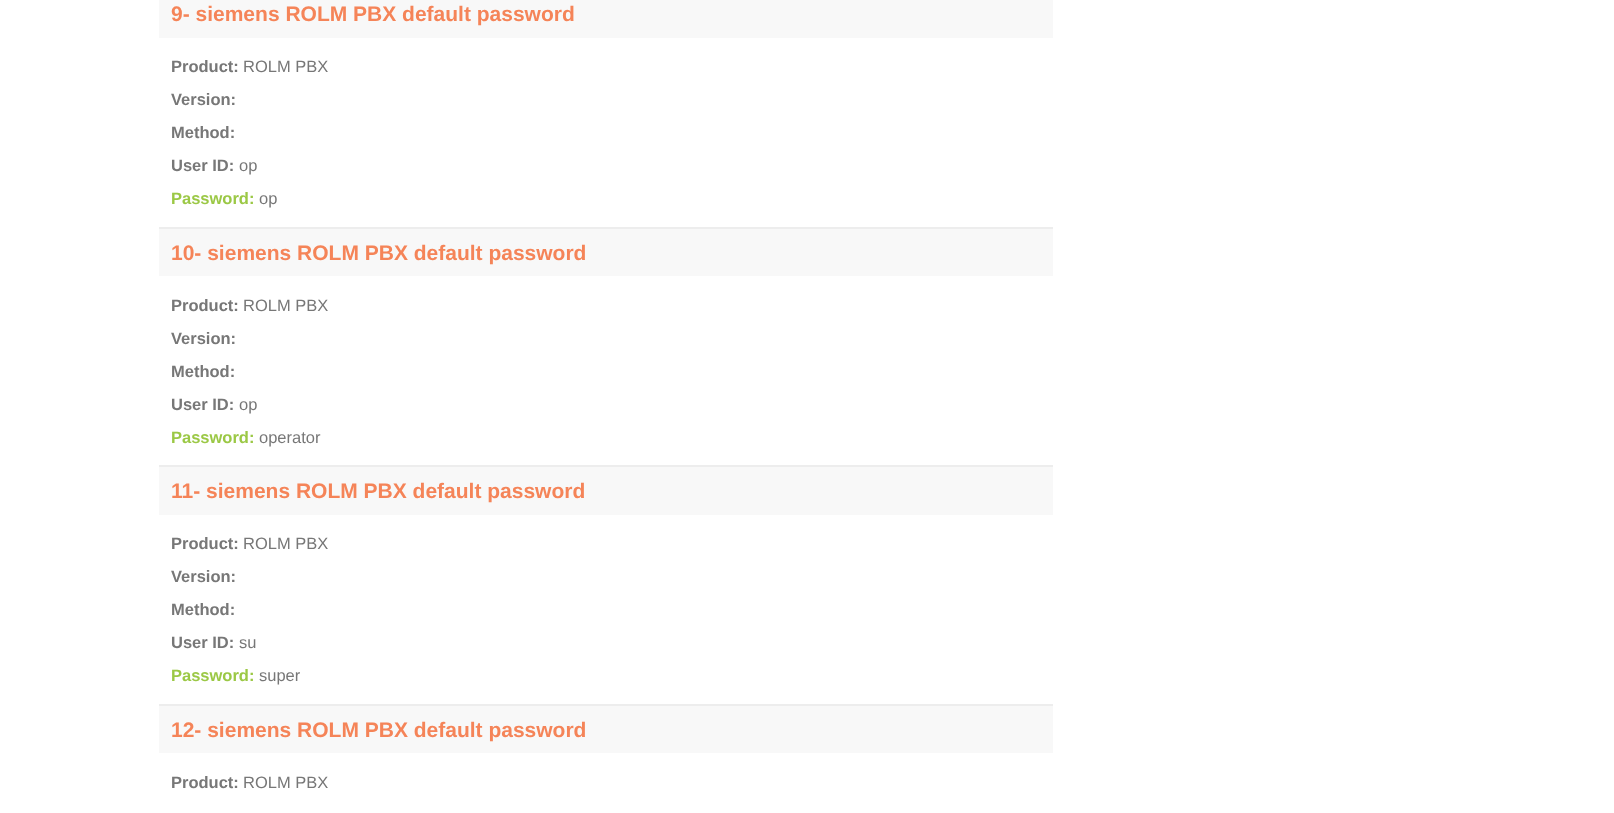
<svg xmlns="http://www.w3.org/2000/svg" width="1614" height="813">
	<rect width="100%" height="100%" fill="#FFFFFF" />
	<rect x="159" y="0" width="894" height="38" fill="#F8F8F8" />
	<text x="171" y="21" font-family="Liberation Sans" font-size="21" font-weight="700" fill="#F58458">9- siemens ROLM PBX default password</text>
	<text x="171" y="72" font-family="Liberation Sans" font-size="16.5" font-weight="700" fill="#777777">Product:</text>
	<text x="243" y="72" font-family="Liberation Sans" font-size="16.5" fill="#777777">ROLM PBX</text>
	<g font-family="Liberation Sans" font-size="16.5" font-weight="700" fill="#777777">
		<text x="171" y="105">Version:</text>
		<text x="171" y="138">Method:</text>
		<text x="171" y="171">User ID:</text>
	</g>
	<text x="239" y="171" font-family="Liberation Sans" font-size="16.5" fill="#777777">op</text>
	<text x="171" y="204" font-family="Liberation Sans" font-size="16.5" font-weight="700" fill="#9BC845">Password:</text>
	<text x="259" y="204" font-family="Liberation Sans" font-size="16.5" fill="#777777">op</text>
	<rect x="159" y="229" width="894" height="47" fill="#F8F8F8" />
	<rect x="159" y="227" width="894" height="2" fill="#EDEDED" />
	<text x="171" y="260" font-family="Liberation Sans" font-size="21" font-weight="700" fill="#F58458">10- siemens ROLM PBX default password</text>
	<text x="171" y="311" font-family="Liberation Sans" font-size="16.5" font-weight="700" fill="#777777">Product:</text>
	<text x="243" y="311" font-family="Liberation Sans" font-size="16.5" fill="#777777">ROLM PBX</text>
	<g font-family="Liberation Sans" font-size="16.5" font-weight="700" fill="#777777">
		<text x="171" y="344">Version:</text>
		<text x="171" y="377">Method:</text>
		<text x="171" y="410">User ID:</text>
	</g>
	<text x="239" y="410" font-family="Liberation Sans" font-size="16.5" fill="#777777">op</text>
	<text x="171" y="443" font-family="Liberation Sans" font-size="16.5" font-weight="700" fill="#9BC845">Password:</text>
	<text x="259" y="443" font-family="Liberation Sans" font-size="16.5" fill="#777777">operator</text>
	<rect x="159" y="467" width="894" height="48" fill="#F8F8F8" />
	<rect x="159" y="465" width="894" height="2" fill="#EDEDED" />
	<text x="171" y="498" font-family="Liberation Sans" font-size="21" font-weight="700" fill="#F58458">11- siemens ROLM PBX default password</text>
	<text x="171" y="549" font-family="Liberation Sans" font-size="16.5" font-weight="700" fill="#777777">Product:</text>
	<text x="243" y="549" font-family="Liberation Sans" font-size="16.5" fill="#777777">ROLM PBX</text>
	<g font-family="Liberation Sans" font-size="16.5" font-weight="700" fill="#777777">
		<text x="171" y="582">Version:</text>
		<text x="171" y="615">Method:</text>
		<text x="171" y="648">User ID:</text>
	</g>
	<text x="239" y="648" font-family="Liberation Sans" font-size="16.5" fill="#777777">su</text>
	<text x="171" y="681" font-family="Liberation Sans" font-size="16.5" font-weight="700" fill="#9BC845">Password:</text>
	<text x="259" y="681" font-family="Liberation Sans" font-size="16.5" fill="#777777">super</text>
	<rect x="159" y="706" width="894" height="47" fill="#F8F8F8" />
	<rect x="159" y="704" width="894" height="2" fill="#EDEDED" />
	<text x="171" y="737" font-family="Liberation Sans" font-size="21" font-weight="700" fill="#F58458">12- siemens ROLM PBX default password</text>
	<text x="171" y="788" font-family="Liberation Sans" font-size="16.5" font-weight="700" fill="#777777">Product:</text>
	<text x="243" y="788" font-family="Liberation Sans" font-size="16.5" fill="#777777">ROLM PBX</text>
</svg>
